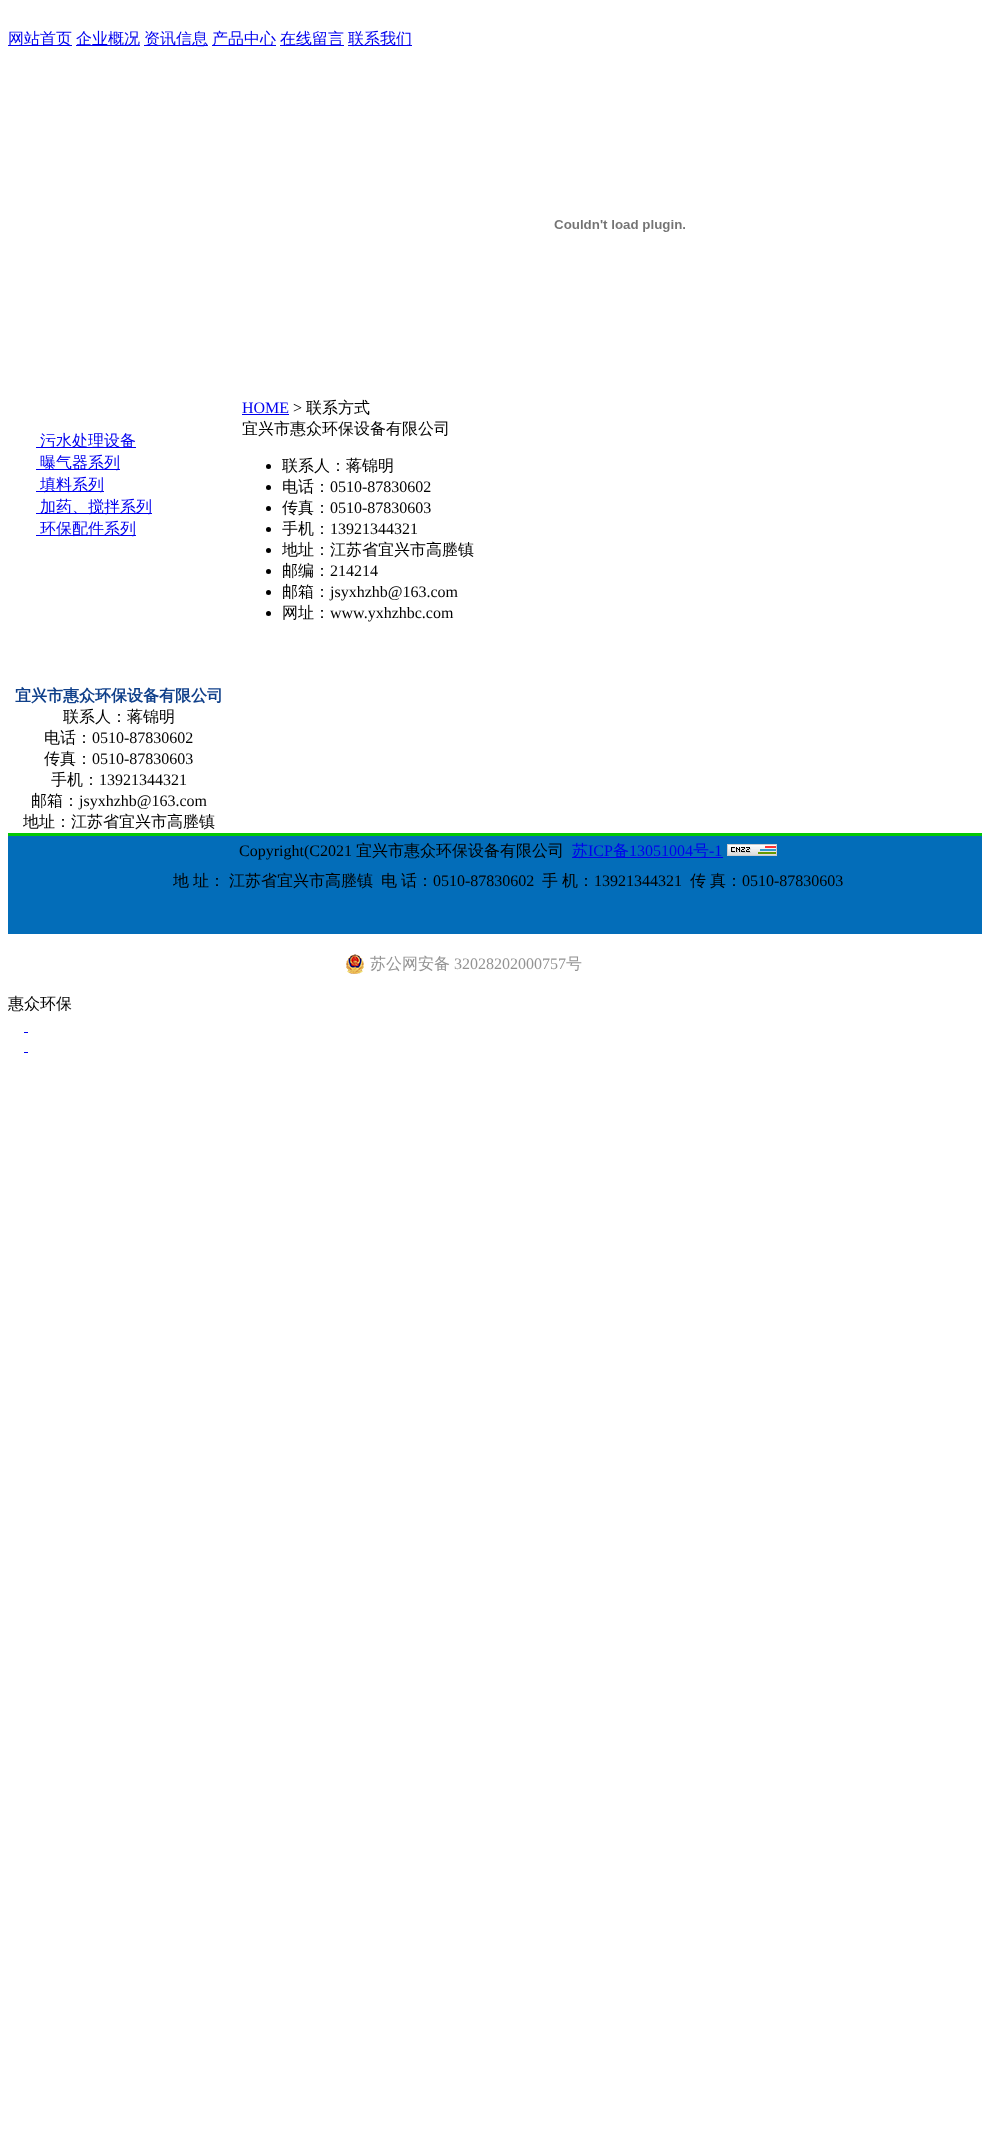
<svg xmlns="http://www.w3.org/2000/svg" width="990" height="2130">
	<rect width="100%" height="100%" fill="#FFFFFF" />
	<rect x="8" y="45" width="64" height="1" fill="#0000EE" />
	<text x="8" y="44" font-family="WenQuanYi Zen Hei" font-size="16" font-weight="500" fill="#0000EE">网站首页</text>
	<rect x="76" y="45" width="64" height="1" fill="#0000EE" />
	<text x="76" y="44" font-family="WenQuanYi Zen Hei" font-size="16" font-weight="500" fill="#0000EE">企业概况</text>
	<rect x="144" y="45" width="64" height="1" fill="#0000EE" />
	<text x="144" y="44" font-family="WenQuanYi Zen Hei" font-size="16" font-weight="500" fill="#0000EE">资讯信息</text>
	<rect x="212" y="45" width="64" height="1" fill="#0000EE" />
	<text x="212" y="44" font-family="WenQuanYi Zen Hei" font-size="16" font-weight="500" fill="#0000EE">产品中心</text>
	<rect x="280" y="45" width="64" height="1" fill="#0000EE" />
	<text x="280" y="44" font-family="WenQuanYi Zen Hei" font-size="16" font-weight="500" fill="#0000EE">在线留言</text>
	<rect x="348" y="45" width="64" height="1" fill="#0000EE" />
	<text x="348" y="44" font-family="WenQuanYi Zen Hei" font-size="16" font-weight="500" fill="#0000EE">联系我们</text>
	<image x="554" y="220" width="131" height="12" href="assets/img1.png" />
	<rect x="36" y="447" width="100" height="1" fill="#0000EE" />
	<text x="40" y="446" font-family="WenQuanYi Zen Hei" font-size="16" font-weight="500" fill="#0000EE">污水处理设备</text>
	<rect x="36" y="469" width="84" height="1" fill="#0000EE" />
	<text x="40" y="468" font-family="WenQuanYi Zen Hei" font-size="16" font-weight="500" fill="#0000EE">曝气器系列</text>
	<rect x="36" y="491" width="68" height="1" fill="#0000EE" />
	<text x="40" y="490" font-family="WenQuanYi Zen Hei" font-size="16" font-weight="500" fill="#0000EE">填料系列</text>
	<rect x="36" y="513" width="116" height="1" fill="#0000EE" />
	<text x="40" y="512" font-family="WenQuanYi Zen Hei" font-size="16" font-weight="500" fill="#0000EE">加药、搅拌系列</text>
	<rect x="36" y="535" width="100" height="1" fill="#0000EE" />
	<text x="40" y="534" font-family="WenQuanYi Zen Hei" font-size="16" font-weight="500" fill="#0000EE">环保配件系列</text>
	<text x="15" y="701" font-family="WenQuanYi Zen Hei" font-size="16" font-weight="700" fill="#10408A">宜兴市惠众环保设备有限公司</text>
	<g font-family="WenQuanYi Zen Hei" font-size="16" font-weight="500" fill="#000000">
		<text x="63" y="722">联系人：蒋锦明</text>
		<text x="44" y="743">电话：</text>
	</g>
	<text x="92" y="743" font-family="Liberation Serif" font-size="16" fill="#000000">0510-87830602</text>
	<text x="44" y="764" font-family="WenQuanYi Zen Hei" font-size="16" font-weight="500" fill="#000000">传真：</text>
	<text x="92" y="764" font-family="Liberation Serif" font-size="16" fill="#000000">0510-87830603</text>
	<text x="51" y="785" font-family="WenQuanYi Zen Hei" font-size="16" font-weight="500" fill="#000000">手机：</text>
	<text x="99" y="785" font-family="Liberation Serif" font-size="16" fill="#000000">13921344321</text>
	<text x="31" y="806" font-family="WenQuanYi Zen Hei" font-size="16" font-weight="500" fill="#000000">邮箱：</text>
	<text x="79" y="806" font-family="Liberation Serif" font-size="16" fill="#000000">jsyxhzhb@163.com</text>
	<text x="23" y="827" font-family="WenQuanYi Zen Hei" font-size="16" font-weight="500" fill="#000000">地址：江苏省宜兴市高塍镇</text>
	<text x="242" y="413" font-family="Liberation Serif" font-size="16" fill="#0000EE">HOME</text>
	<rect x="242" y="414" width="47" height="1" fill="#0000EE" />
	<text x="293" y="413" font-family="Liberation Serif" font-size="16" fill="#000000">&gt;</text>
	<g font-family="WenQuanYi Zen Hei" font-size="16" font-weight="500" fill="#000000">
		<text x="306" y="413">联系方式</text>
		<text x="242" y="434">宜兴市惠众环保设备有限公司</text>
	</g>
	<circle cx="268.5" cy="466.5" r="2.5" fill="#000000" />
	<text x="282" y="471" font-family="WenQuanYi Zen Hei" font-size="16" font-weight="500" fill="#000000">联系人：蒋锦明</text>
	<circle cx="268.5" cy="487.5" r="2.5" fill="#000000" />
	<text x="282" y="492" font-family="WenQuanYi Zen Hei" font-size="16" font-weight="500" fill="#000000">电话：</text>
	<text x="330" y="492" font-family="Liberation Serif" font-size="16" fill="#000000">0510-87830602</text>
	<circle cx="268.5" cy="508.5" r="2.5" fill="#000000" />
	<text x="282" y="513" font-family="WenQuanYi Zen Hei" font-size="16" font-weight="500" fill="#000000">传真：</text>
	<text x="330" y="513" font-family="Liberation Serif" font-size="16" fill="#000000">0510-87830603</text>
	<circle cx="268.5" cy="529.5" r="2.5" fill="#000000" />
	<text x="282" y="534" font-family="WenQuanYi Zen Hei" font-size="16" font-weight="500" fill="#000000">手机：</text>
	<text x="330" y="534" font-family="Liberation Serif" font-size="16" fill="#000000">13921344321</text>
	<circle cx="268.5" cy="550.5" r="2.5" fill="#000000" />
	<text x="282" y="555" font-family="WenQuanYi Zen Hei" font-size="16" font-weight="500" fill="#000000">地址：江苏省宜兴市高塍镇</text>
	<circle cx="268.5" cy="571.5" r="2.5" fill="#000000" />
	<text x="282" y="576" font-family="WenQuanYi Zen Hei" font-size="16" font-weight="500" fill="#000000">邮编：</text>
	<text x="330" y="576" font-family="Liberation Serif" font-size="16" fill="#000000">214214</text>
	<circle cx="268.5" cy="592.5" r="2.5" fill="#000000" />
	<text x="282" y="597" font-family="WenQuanYi Zen Hei" font-size="16" font-weight="500" fill="#000000">邮箱：</text>
	<text x="330" y="597" font-family="Liberation Serif" font-size="16" fill="#000000">jsyxhzhb@163.com</text>
	<circle cx="268.5" cy="613.5" r="2.5" fill="#000000" />
	<text x="282" y="618" font-family="WenQuanYi Zen Hei" font-size="16" font-weight="500" fill="#000000">网址：</text>
	<text x="330" y="618" font-family="Liberation Serif" font-size="16" fill="#000000">www.yxhzhbc.com</text>
	<rect x="8" y="836" width="974" height="98" fill="#036DB9" />
	<rect x="8" y="833" width="974" height="3" fill="#04C804" />
	<text x="239" y="856" font-family="Liberation Serif" font-size="16" fill="#000000">Copyright(C2021</text>
	<text x="356" y="856" font-family="WenQuanYi Zen Hei" font-size="16" font-weight="500" fill="#000000">宜兴市惠众环保设备有限公司</text>
	<rect x="572" y="857" width="151" height="1" fill="#0000EE" />
	<text x="572" y="856" font-family="WenQuanYi Zen Hei" font-size="16" font-weight="500" fill="#0000EE">苏</text>
	<text x="588" y="856" font-family="Liberation Serif" font-size="16" fill="#0000EE">ICP</text>
	<text x="613" y="856" font-family="WenQuanYi Zen Hei" font-size="16" font-weight="500" fill="#0000EE">备</text>
	<text x="629" y="856" font-family="Liberation Serif" font-size="16" fill="#0000EE">13051004</text>
	<text x="693" y="856" font-family="WenQuanYi Zen Hei" font-size="16" font-weight="500" fill="#0000EE">号</text>
	<text x="709" y="856" font-family="Liberation Serif" font-size="16" fill="#0000EE">-1</text>
	<image x="727" y="844" width="50" height="12" href="assets/img2.png" />
	<g font-family="WenQuanYi Zen Hei" font-size="16" font-weight="500" fill="#000000">
		<text x="173" y="886">地</text>
		<text x="193" y="886">址：</text>
		<text x="229" y="886">江苏省宜兴市高塍镇</text>
		<text x="381" y="886">电</text>
		<text x="401" y="886">话：</text>
	</g>
	<text x="433" y="886" font-family="Liberation Serif" font-size="16" fill="#000000">0510-87830602</text>
	<g font-family="WenQuanYi Zen Hei" font-size="16" font-weight="500" fill="#000000">
		<text x="542" y="886">手</text>
		<text x="562" y="886">机：</text>
	</g>
	<text x="594" y="886" font-family="Liberation Serif" font-size="16" fill="#000000">13921344321</text>
	<g font-family="WenQuanYi Zen Hei" font-size="16" font-weight="500" fill="#000000">
		<text x="690" y="886">传</text>
		<text x="710" y="886">真：</text>
	</g>
	<text x="742" y="886" font-family="Liberation Serif" font-size="16" fill="#000000">0510-87830603</text>
	<image x="346" y="954" width="18" height="20" href="assets/img3.png" />
	<text x="370" y="969" font-family="WenQuanYi Zen Hei" font-size="16" font-weight="500" fill="#939393">苏公网安备</text>
	<text x="454" y="969" font-family="Liberation Serif" font-size="16" fill="#939393">32028202000757</text>
	<text x="566" y="969" font-family="WenQuanYi Zen Hei" font-size="16" font-weight="500" fill="#939393">号</text>
	<text x="8" y="1009" font-family="WenQuanYi Zen Hei" font-size="16" font-weight="500" fill="#000000">惠众环保</text>
	<rect x="24" y="1032" width="4" height="1" fill="#0000EE" />
	<rect x="24" y="1052" width="4" height="1" fill="#0000EE" />
</svg>
